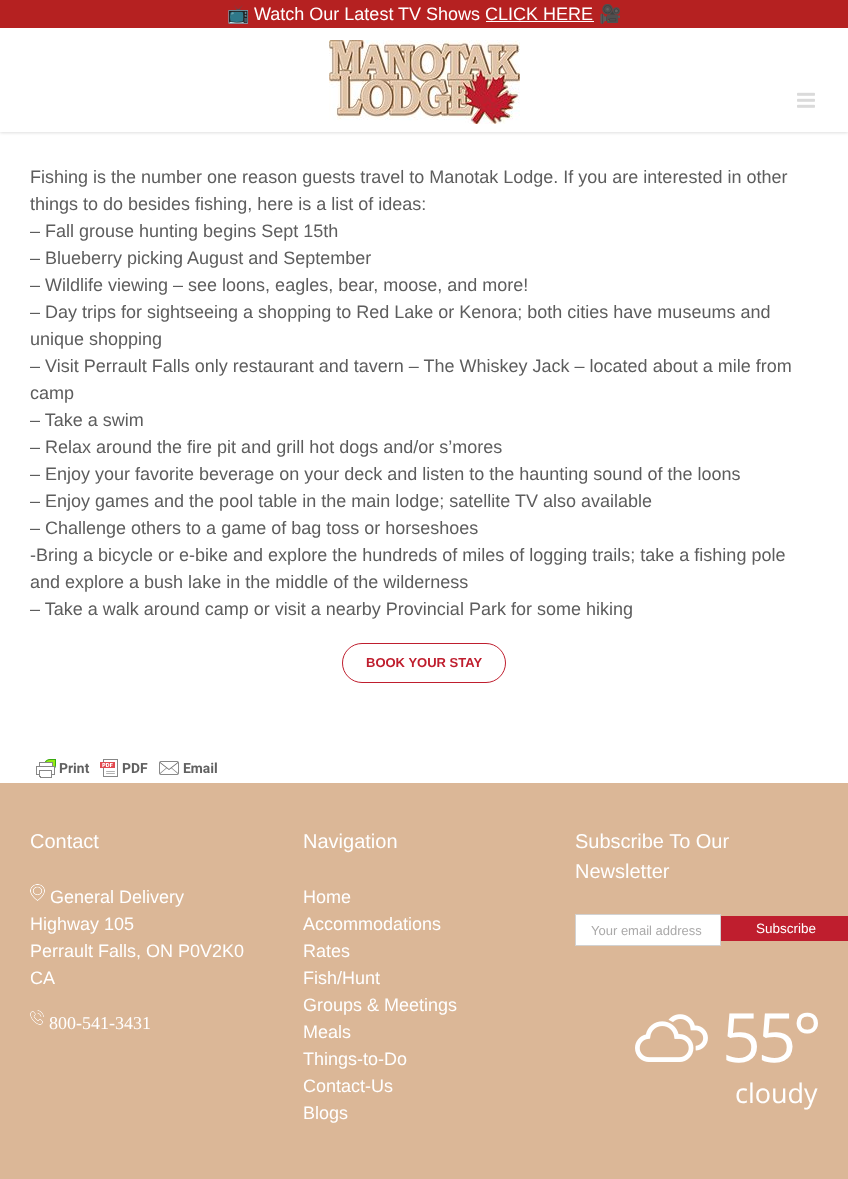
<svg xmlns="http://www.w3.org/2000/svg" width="848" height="1179">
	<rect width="100%" height="100%" fill="#FFFFFF" />
	<rect x="0" y="1" width="848" height="132" fill="#000000" fill-opacity="0.12" filter="blur(1.5px)" />
	<rect x="0" y="0" width="848" height="28" fill="#B52121" />
	<text x="227" y="20" font-family="Noto Color Emoji" font-size="18" fill="#FFFFFF">📺</text>
	<text x="254" y="20" font-family="Arimo" font-size="18" fill="#FFFFFF">Watch Our Latest TV Shows CLICK HERE</text>
	<text x="599" y="20" font-family="Noto Color Emoji" font-size="18" fill="#FFFFFF">🎥</text>
	<rect x="486" y="21" width="108" height="1" fill="#FFFFFF" />
	<rect x="0" y="28" width="848" height="104" fill="#FFFFFF" />
	<image x="329" y="40" width="191" height="84" href="assets/img1.png" />
	<image x="797" y="92" width="18" height="16" href="assets/img2.png" />
	<g font-family="Arimo" font-size="18" fill="#5D5D5D">
		<text x="30" y="183">Fishing is the number one reason guests travel to Manotak Lodge. If you are interested in other</text>
		<text x="30" y="210">things to do besides fishing, here is a list of ideas:</text>
		<text x="30" y="237">– Fall grouse hunting begins Sept 15th</text>
		<text x="30" y="264">– Blueberry picking August and September</text>
		<text x="30" y="291">– Wildlife viewing – see loons, eagles, bear, moose, and more!</text>
		<text x="30" y="318">– Day trips for sightseeing a shopping to Red Lake or Kenora; both cities have museums and</text>
		<text x="30" y="345">unique shopping</text>
		<text x="30" y="372">– Visit Perrault Falls only restaurant and tavern – The Whiskey Jack – located about a mile from</text>
		<text x="30" y="399">camp</text>
		<text x="30" y="426">– Take a swim</text>
		<text x="30" y="453">– Relax around the fire pit and grill hot dogs and/or s’mores</text>
		<text x="30" y="480">– Enjoy your favorite beverage on your deck and listen to the haunting sound of the loons</text>
		<text x="30" y="507">– Enjoy games and the pool table in the main lodge; satellite TV also available</text>
		<text x="30" y="534">– Challenge others to a game of bag toss or horseshoes</text>
		<text x="30" y="561">-Bring a bicycle or e-bike and explore the hundreds of miles of logging trails; take a fishing pole</text>
		<text x="30" y="588">and explore a bush lake in the middle of the wilderness</text>
		<text x="30" y="615">– Take a walk around camp or visit a nearby Provincial Park for some hiking</text>
	</g>
	<rect x="342.5" y="643.5" width="163" height="39" rx="19.5" fill="none" stroke="#BF1E2E" />
	<text x="366" y="667" font-family="Arimo" font-size="13" font-weight="700" fill="#BF1E2E">BOOK YOUR STAY</text>
	<image x="36" y="759" width="181" height="19" href="assets/img3.png" />
	<rect x="0" y="783" width="848" height="396" fill="#DBB797" />
	<text x="30" y="848" font-family="Arimo" font-size="20" fill="#FFFFFF">Contact</text>
	<image x="30" y="884" width="15" height="17" href="assets/img4.png" />
	<g font-family="Arimo" font-size="18" fill="#FFFFFF">
		<text x="50" y="903">General Delivery</text>
		<text x="30" y="930">Highway 105</text>
		<text x="30" y="957">Perrault Falls, ON P0V2K0</text>
		<text x="30" y="984">CA</text>
	</g>
	<image x="30" y="1010" width="14" height="15" href="assets/img5.png" />
	<text x="49" y="1029" font-family="Liberation Serif" font-size="18" fill="#FFFFFF">800‑541‑3431</text>
	<text x="303" y="848" font-family="Arimo" font-size="20" fill="#FFFFFF">Navigation</text>
	<g font-family="Arimo" font-size="18" fill="#FFFFFF">
		<text x="303" y="903">Home</text>
		<text x="303" y="930">Accommodations</text>
		<text x="303" y="957">Rates</text>
		<text x="303" y="984">Fish/Hunt</text>
		<text x="303" y="1011">Groups &amp; Meetings</text>
		<text x="303" y="1038">Meals</text>
		<text x="303" y="1065">Things-to-Do</text>
		<text x="303" y="1092">Contact-Us</text>
		<text x="303" y="1119">Blogs</text>
	</g>
	<g font-family="Arimo" font-size="20" fill="#FFFFFF">
		<text x="575" y="848">Subscribe To Our</text>
		<text x="575" y="878">Newsletter</text>
	</g>
	<rect x="575.5" y="914.5" width="145" height="31" fill="#FFFFFF" stroke="#D2D2D2" />
	<text x="591" y="935" font-family="Arimo" font-size="13" fill="#AAA9A9">Your email address</text>
	<rect x="721" y="916" width="127" height="25" fill="#BF1E2E" />
	<text x="756" y="933" font-family="Arimo" font-size="13.5" fill="#FFFFFF">Subscribe</text>
	<image x="635" y="1014" width="73" height="48" href="assets/img6.png" />
	<text x="722" y="1062" font-family="Open Sans" font-size="68" letter-spacing="-3.5" fill="#FFFFFF">55°</text>
	<text x="735" y="1103" font-family="Open Sans" font-size="27" fill="#FFFFFF">cloudy</text>
</svg>
